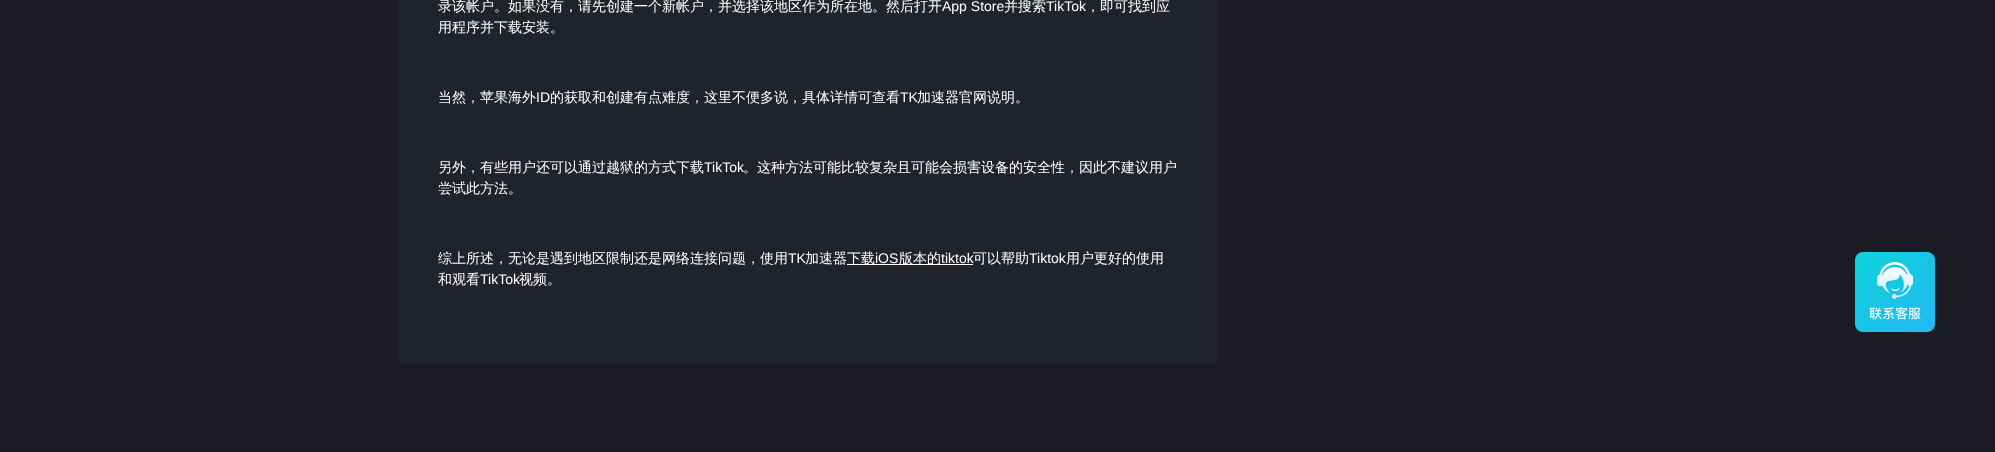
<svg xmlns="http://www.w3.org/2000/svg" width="1995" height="452">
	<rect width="100%" height="100%" fill="#1A1B24" />
	<rect x="398" y="-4" width="820" height="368" rx="4" fill="#20222C" />
	<text x="438" y="11" font-family="WenQuanYi Zen Hei" font-size="14" font-weight="500" fill="#FFFFFF">录该帐户。如果没有，请先创建一个新帐户，并选择该地区作为所在地。然后打开</text>
	<text x="942" y="11" font-family="Liberation Sans" font-size="14" fill="#FFFFFF">App Store</text>
	<text x="1004" y="11" font-family="WenQuanYi Zen Hei" font-size="14" font-weight="500" fill="#FFFFFF">并搜索</text>
	<text x="1046" y="11" font-family="Liberation Sans" font-size="14" fill="#FFFFFF">TikTok</text>
	<g font-family="WenQuanYi Zen Hei" font-size="14" font-weight="500" fill="#FFFFFF">
		<text x="1086" y="11">，即可找到应</text>
		<text x="438" y="32">用程序并下载安装。</text>
		<text x="438" y="102">当然，苹果海外</text>
	</g>
	<text x="536" y="102" font-family="Liberation Sans" font-size="14" fill="#FFFFFF">ID</text>
	<text x="550" y="102" font-family="WenQuanYi Zen Hei" font-size="14" font-weight="500" fill="#FFFFFF">的获取和创建有点难度，这里不便多说，具体详情可查看</text>
	<text x="900" y="102" font-family="Liberation Sans" font-size="14" fill="#FFFFFF">TK</text>
	<g font-family="WenQuanYi Zen Hei" font-size="14" font-weight="500" fill="#FFFFFF">
		<text x="917" y="102">加速器官网说明。</text>
		<text x="438" y="172">另外，有些用户还可以通过越狱的方式下载</text>
	</g>
	<text x="704" y="172" font-family="Liberation Sans" font-size="14" fill="#FFFFFF">TikTok</text>
	<g font-family="WenQuanYi Zen Hei" font-size="14" font-weight="500" fill="#FFFFFF">
		<text x="743" y="172">。这种方法可能比较复杂且可能会损害设备的安全性，因此不建议用户</text>
		<text x="438" y="193">尝试此方法。</text>
		<text x="438" y="263">综上所述，无论是遇到地区限制还是网络连接问题，使用</text>
	</g>
	<text x="788" y="263" font-family="Liberation Sans" font-size="14" fill="#FFFFFF">TK</text>
	<text x="805" y="263" font-family="WenQuanYi Zen Hei" font-size="14" font-weight="500" fill="#FFFFFF">加速器</text>
	<rect x="847" y="264" width="126" height="1" fill="#FFFFFF" />
	<text x="847" y="263" font-family="WenQuanYi Zen Hei" font-size="14" font-weight="500" fill="#FFFFFF">下载</text>
	<text x="875" y="263" font-family="Liberation Sans" font-size="14" fill="#FFFFFF">iOS</text>
	<text x="899" y="263" font-family="WenQuanYi Zen Hei" font-size="14" font-weight="500" fill="#FFFFFF">版本的</text>
	<text x="941" y="263" font-family="Liberation Sans" font-size="14" fill="#FFFFFF">tiktok</text>
	<text x="973" y="263" font-family="WenQuanYi Zen Hei" font-size="14" font-weight="500" fill="#FFFFFF">可以帮助</text>
	<text x="1029" y="263" font-family="Liberation Sans" font-size="14" fill="#FFFFFF">Tiktok</text>
	<g font-family="WenQuanYi Zen Hei" font-size="14" font-weight="500" fill="#FFFFFF">
		<text x="1066" y="263">用户更好的使用</text>
		<text x="438" y="284">和观看</text>
	</g>
	<text x="480" y="284" font-family="Liberation Sans" font-size="14" fill="#FFFFFF">TikTok</text>
	<text x="519" y="284" font-family="WenQuanYi Zen Hei" font-size="14" font-weight="500" fill="#FFFFFF">视频。</text>
	<image x="1855" y="252" width="80" height="80" href="assets/img1.png" />
</svg>
